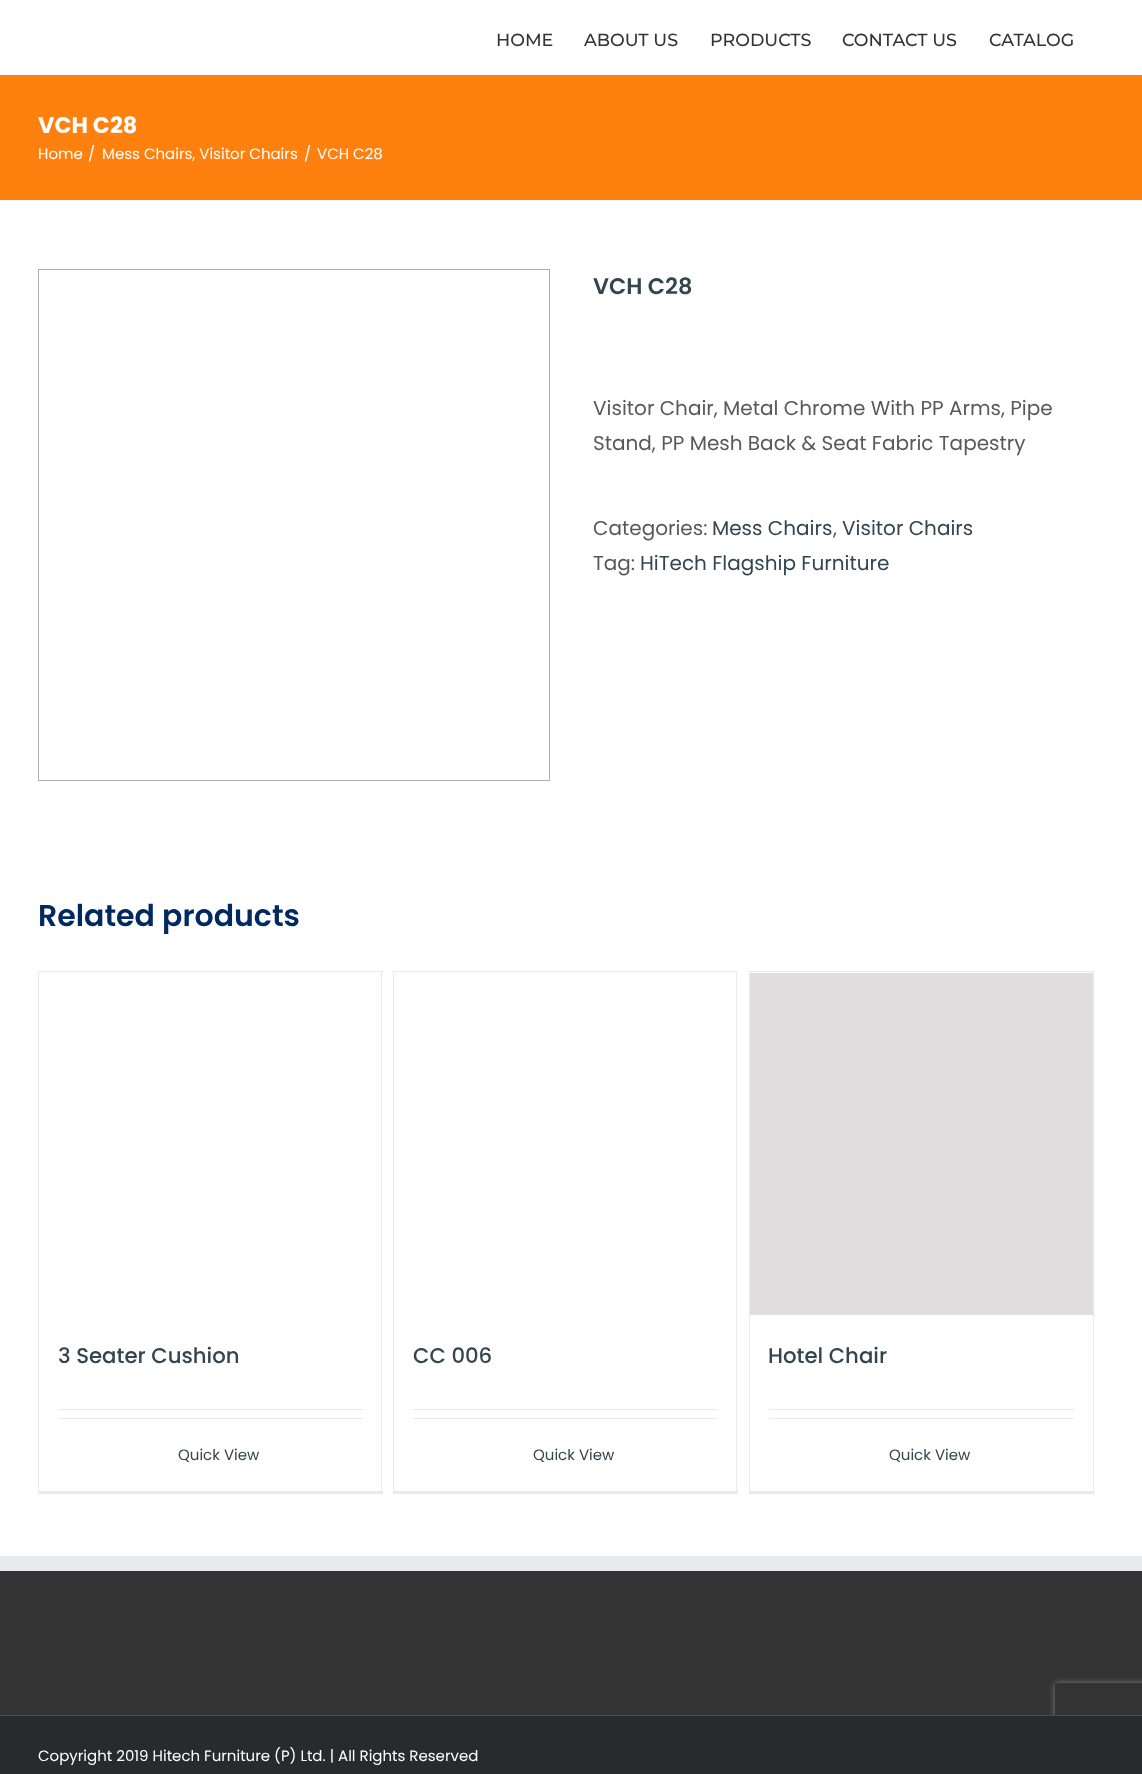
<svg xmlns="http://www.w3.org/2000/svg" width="1142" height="1774">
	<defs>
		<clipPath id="clip1"><path d="M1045 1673H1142V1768H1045ZM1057.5 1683H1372.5C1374 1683 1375 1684 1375 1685.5V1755.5C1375 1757 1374 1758 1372.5 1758H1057.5C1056 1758 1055 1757 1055 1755.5V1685.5C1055 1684 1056 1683 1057.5 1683Z" clip-rule="evenodd" /></clipPath>
	</defs>
	<rect width="100%" height="100%" fill="#FFFFFF" />
	<g font-family="Montserrat" font-size="17.5" font-weight="100" fill="#333333">
		<text x="496" y="46">HOME</text>
		<text x="584" y="46">ABOUT US</text>
		<text x="710" y="46">PRODUCTS</text>
		<text x="842" y="46">CONTACT US</text>
		<text x="989" y="46">CATALOG</text>
	</g>
	<rect x="0" y="75" width="1142" height="125" fill="#FE800F" />
	<text x="38" y="133" font-family="Poppins" font-size="22.5" font-weight="700" fill="#FFFFFF">VCH C28</text>
	<g font-family="Poppins" font-size="15" fill="#FFFFFF">
		<text x="38" y="159">Home</text>
		<text x="88" y="159">/</text>
		<text x="102" y="159">Mess Chairs, Visitor Chairs</text>
		<text x="304" y="159">/</text>
		<text x="317" y="159">VCH C28</text>
	</g>
	<rect x="38.5" y="269.5" width="511" height="511" fill="none" stroke="#AFAFAF" />
	<text x="593" y="294" font-family="Poppins" font-size="22.5" font-weight="600" fill="#34454F">VCH C28</text>
	<g font-family="Poppins" font-size="20" fill="#595959">
		<text x="593" y="415">Visitor Chair, Metal Chrome With PP Arms, Pipe</text>
		<text x="593" y="450">Stand, PP Mesh Back &amp; Seat Fabric Tapestry</text>
		<text x="593" y="535">Categories:</text>
	</g>
	<text x="712" y="535" font-family="Poppins" font-size="20" fill="#34454F">Mess Chairs</text>
	<text x="833" y="535" font-family="Poppins" font-size="20" fill="#595959">,</text>
	<text x="842" y="535" font-family="Poppins" font-size="20" fill="#34454F">Visitor Chairs</text>
	<text x="593" y="570" font-family="Poppins" font-size="20" fill="#595959">Tag:</text>
	<text x="640" y="570" font-family="Poppins" font-size="20" fill="#34454F">HiTech Flagship Furniture</text>
	<text x="38" y="926" font-family="Poppins" font-size="30" font-weight="600" fill="#002861">Related products</text>
	<rect x="38" y="971" width="345" height="1" fill="#EBEAEA" />
	<rect x="381" y="971" width="1" height="523" fill="#EBEAEA" />
	<rect x="38" y="1491" width="345" height="3" fill="#EBEAEA" />
	<rect x="38" y="971" width="1" height="523" fill="#EBEAEA" />
	<text x="58" y="1363" font-family="Poppins" font-size="21.25" font-weight="500" fill="#34454F">3 Seater Cushion</text>
	<rect x="58" y="1409" width="305" height="1" fill="#EBEAEA" />
	<rect x="58" y="1418" width="305" height="1" fill="#EBEAEA" />
	<text x="178" y="1460" font-family="Poppins" font-size="15" fill="#34454F">Quick View</text>
	<rect x="393" y="971" width="345" height="1" fill="#EBEAEA" />
	<rect x="736" y="971" width="1" height="523" fill="#EBEAEA" />
	<rect x="393" y="1491" width="345" height="3" fill="#EBEAEA" />
	<rect x="393" y="971" width="1" height="523" fill="#EBEAEA" />
	<text x="413" y="1363" font-family="Poppins" font-size="21.25" font-weight="500" fill="#34454F">CC 006</text>
	<rect x="413" y="1409" width="305" height="1" fill="#EBEAEA" />
	<rect x="413" y="1418" width="305" height="1" fill="#EBEAEA" />
	<text x="533" y="1460" font-family="Poppins" font-size="15" fill="#34454F">Quick View</text>
	<rect x="749" y="971" width="345" height="1" fill="#EBEAEA" />
	<rect x="1093" y="971" width="1" height="523" fill="#EBEAEA" />
	<rect x="749" y="1491" width="345" height="3" fill="#EBEAEA" />
	<rect x="749" y="971" width="1" height="523" fill="#EBEAEA" />
	<rect x="750" y="973" width="343" height="342" fill="#E0DEDE" />
	<text x="768" y="1363" font-family="Poppins" font-size="21.25" font-weight="500" fill="#34454F">Hotel Chair</text>
	<rect x="769" y="1409" width="305" height="1" fill="#EBEAEA" />
	<rect x="769" y="1418" width="305" height="1" fill="#EBEAEA" />
	<text x="889" y="1460" font-family="Poppins" font-size="15" fill="#34454F">Quick View</text>
	<rect x="0" y="1571" width="1142" height="144" fill="#333333" />
	<rect x="0" y="1556" width="1142" height="15" fill="#E9EAEE" />
	<g clip-path="url(#clip1)">
		<rect x="1055" y="1683" width="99" height="75" rx="2.5" fill="#808080" filter="blur(3px)" />
	</g>
	<rect x="0" y="1716" width="1142" height="58" fill="#282A2B" />
	<rect x="0" y="1715" width="1142" height="1" fill="#4B4C4D" />
	<text x="38" y="1761" font-family="Poppins" font-size="15" fill="#FFFFFF">Copyright 2019 Hitech Furniture (P) Ltd. | All Rights Reserved</text>
</svg>
